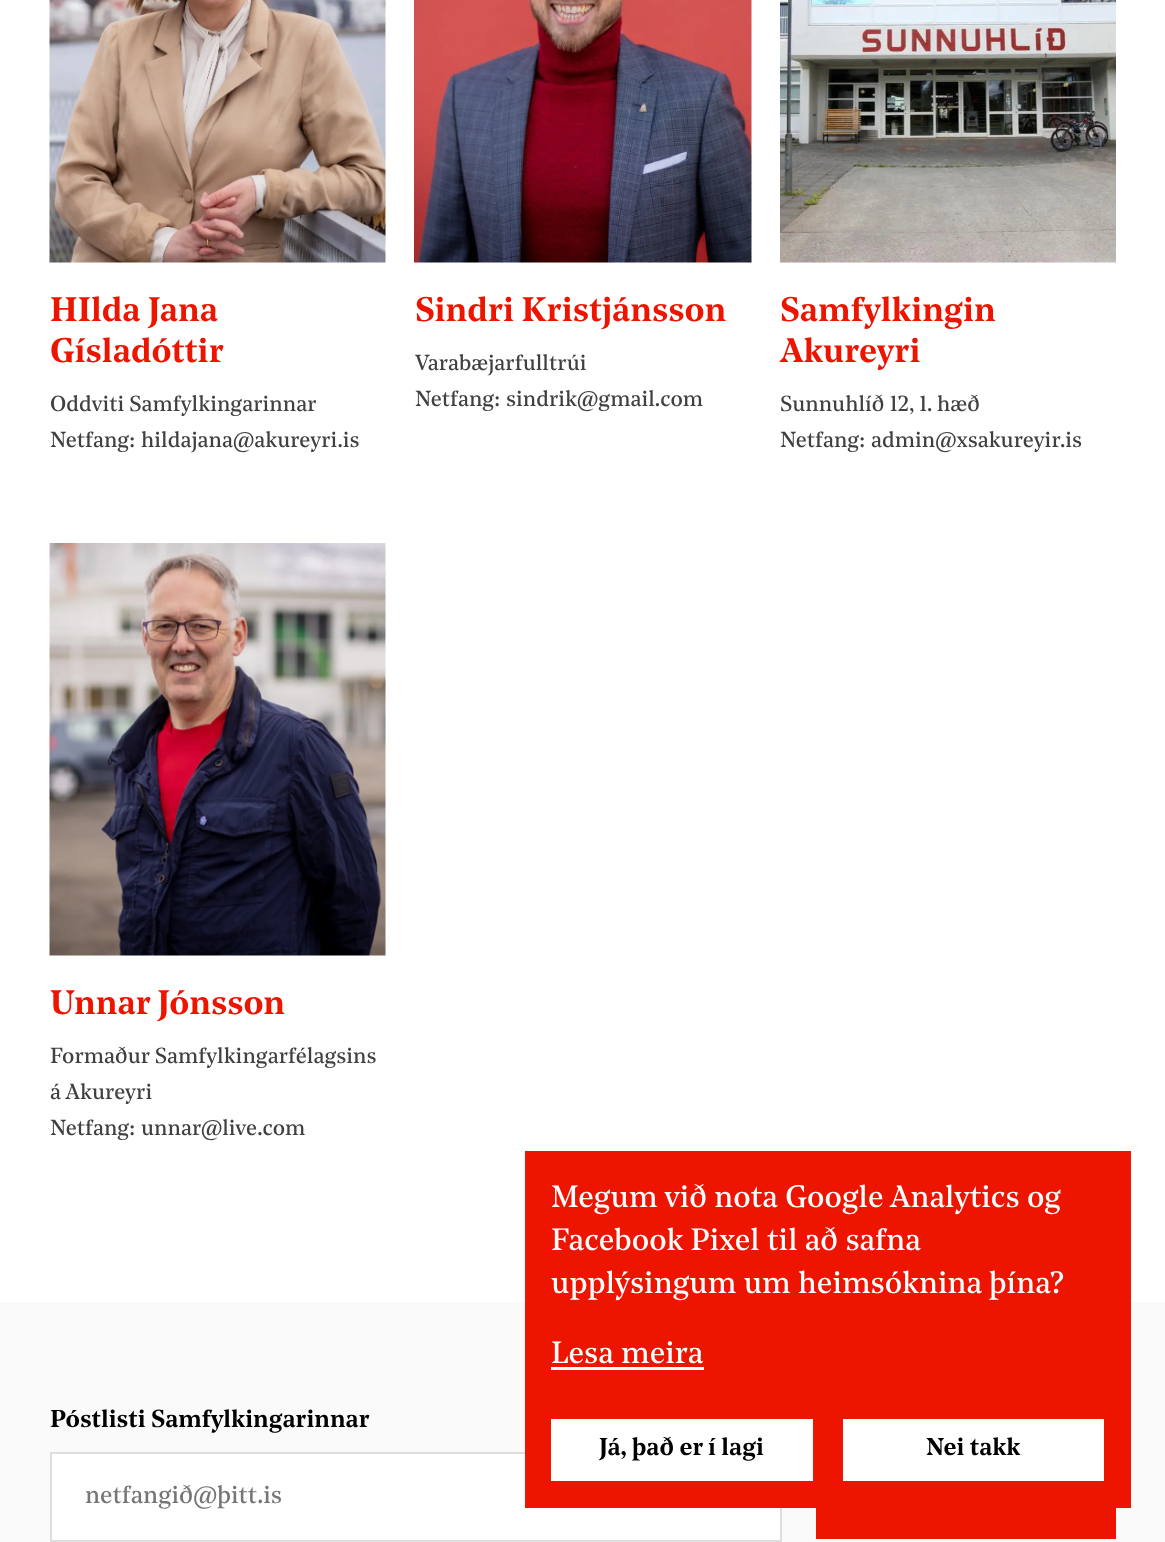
<svg xmlns="http://www.w3.org/2000/svg" width="1165" height="1542">
	<rect width="100%" height="100%" fill="#FFFFFF" />
	<image x="49" y="0" width="337" height="263" href="assets/img1.png" />
	<g font-family="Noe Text" font-size="33.75" font-weight="600" fill="#ED1400">
		<text x="50" y="321">HIlda Jana</text>
		<text x="50" y="362">Gísladóttir</text>
	</g>
	<g font-family="Noe Text" font-size="21.6" fill="#404040">
		<text x="50" y="411">Oddviti Samfylkingarinnar</text>
		<text x="50" y="447">Netfang:</text>
		<text x="141" y="447">hildajana@akureyri.is</text>
	</g>
	<image x="414" y="0" width="338" height="263" href="assets/img2.png" />
	<text x="415" y="321" font-family="Noe Text" font-size="33.75" font-weight="600" fill="#ED1400">Sindri Kristjánsson</text>
	<g font-family="Noe Text" font-size="21.6" fill="#404040">
		<text x="415" y="370">Varabæjarfulltrúi</text>
		<text x="415" y="406">Netfang:</text>
		<text x="506" y="406">sindrik@gmail.com</text>
	</g>
	<image x="780" y="0" width="336" height="263" href="assets/img3.png" />
	<g font-family="Noe Text" font-size="33.75" font-weight="600" fill="#ED1400">
		<text x="780" y="321">Samfylkingin</text>
		<text x="780" y="362">Akureyri</text>
	</g>
	<g font-family="Noe Text" font-size="21.6" fill="#404040">
		<text x="780" y="411">Sunnuhlíð 12, 1. hæð</text>
		<text x="780" y="447">Netfang:</text>
		<text x="871" y="447">admin@xsakureyir.is</text>
	</g>
	<image x="49" y="543" width="337" height="413" href="assets/img4.png" />
	<text x="50" y="1014" font-family="Noe Text" font-size="33.75" font-weight="600" fill="#ED1400">Unnar Jónsson</text>
	<g font-family="Noe Text" font-size="21.6" fill="#404040">
		<text x="50" y="1063">Formaður Samfylkingarfélagsins</text>
		<text x="50" y="1099">á Akureyri</text>
		<text x="50" y="1135">Netfang:</text>
		<text x="141" y="1135">unnar@live.com</text>
	</g>
	<rect x="0" y="1302" width="1165" height="240" fill="#FAFAFA" />
	<rect x="51" y="1453" width="730" height="88" fill="#FFFFFF" stroke="#DEDEDE" stroke-width="2" />
	<rect x="525" y="1151" width="606" height="357" fill="#ED1400" />
	<g font-family="Noe Text" font-size="30.5" fill="#FFFFFF">
		<text x="551" y="1207">Megum við nota Google Analytics og</text>
		<text x="551" y="1250">Facebook Pixel til að safna</text>
		<text x="551" y="1293">upplýsingum um heimsóknina þína?</text>
		<text x="551" y="1363">Lesa meira</text>
	</g>
	<rect x="551" y="1367" width="153" height="3" fill="#FFFFFF" />
	<rect x="551" y="1419" width="262" height="62" fill="#FFFFFF" />
	<text x="599" y="1455" font-family="Noe Text" font-size="24.25" font-weight="600" fill="#000000">Já, það er í lagi</text>
	<rect x="843" y="1419" width="261" height="62" fill="#FFFFFF" />
	<g font-family="Noe Text" font-size="24.25" font-weight="600" fill="#000000">
		<text x="926" y="1455">Nei takk</text>
		<text x="50" y="1427">Póstlisti Samfylkingarinnar</text>
	</g>
	<text x="85" y="1503" font-family="Noe Text" font-size="24.25" fill="#757575">netfangið@þitt.is</text>
	<rect x="816" y="1508" width="300" height="31" fill="#ED1400" />
</svg>
